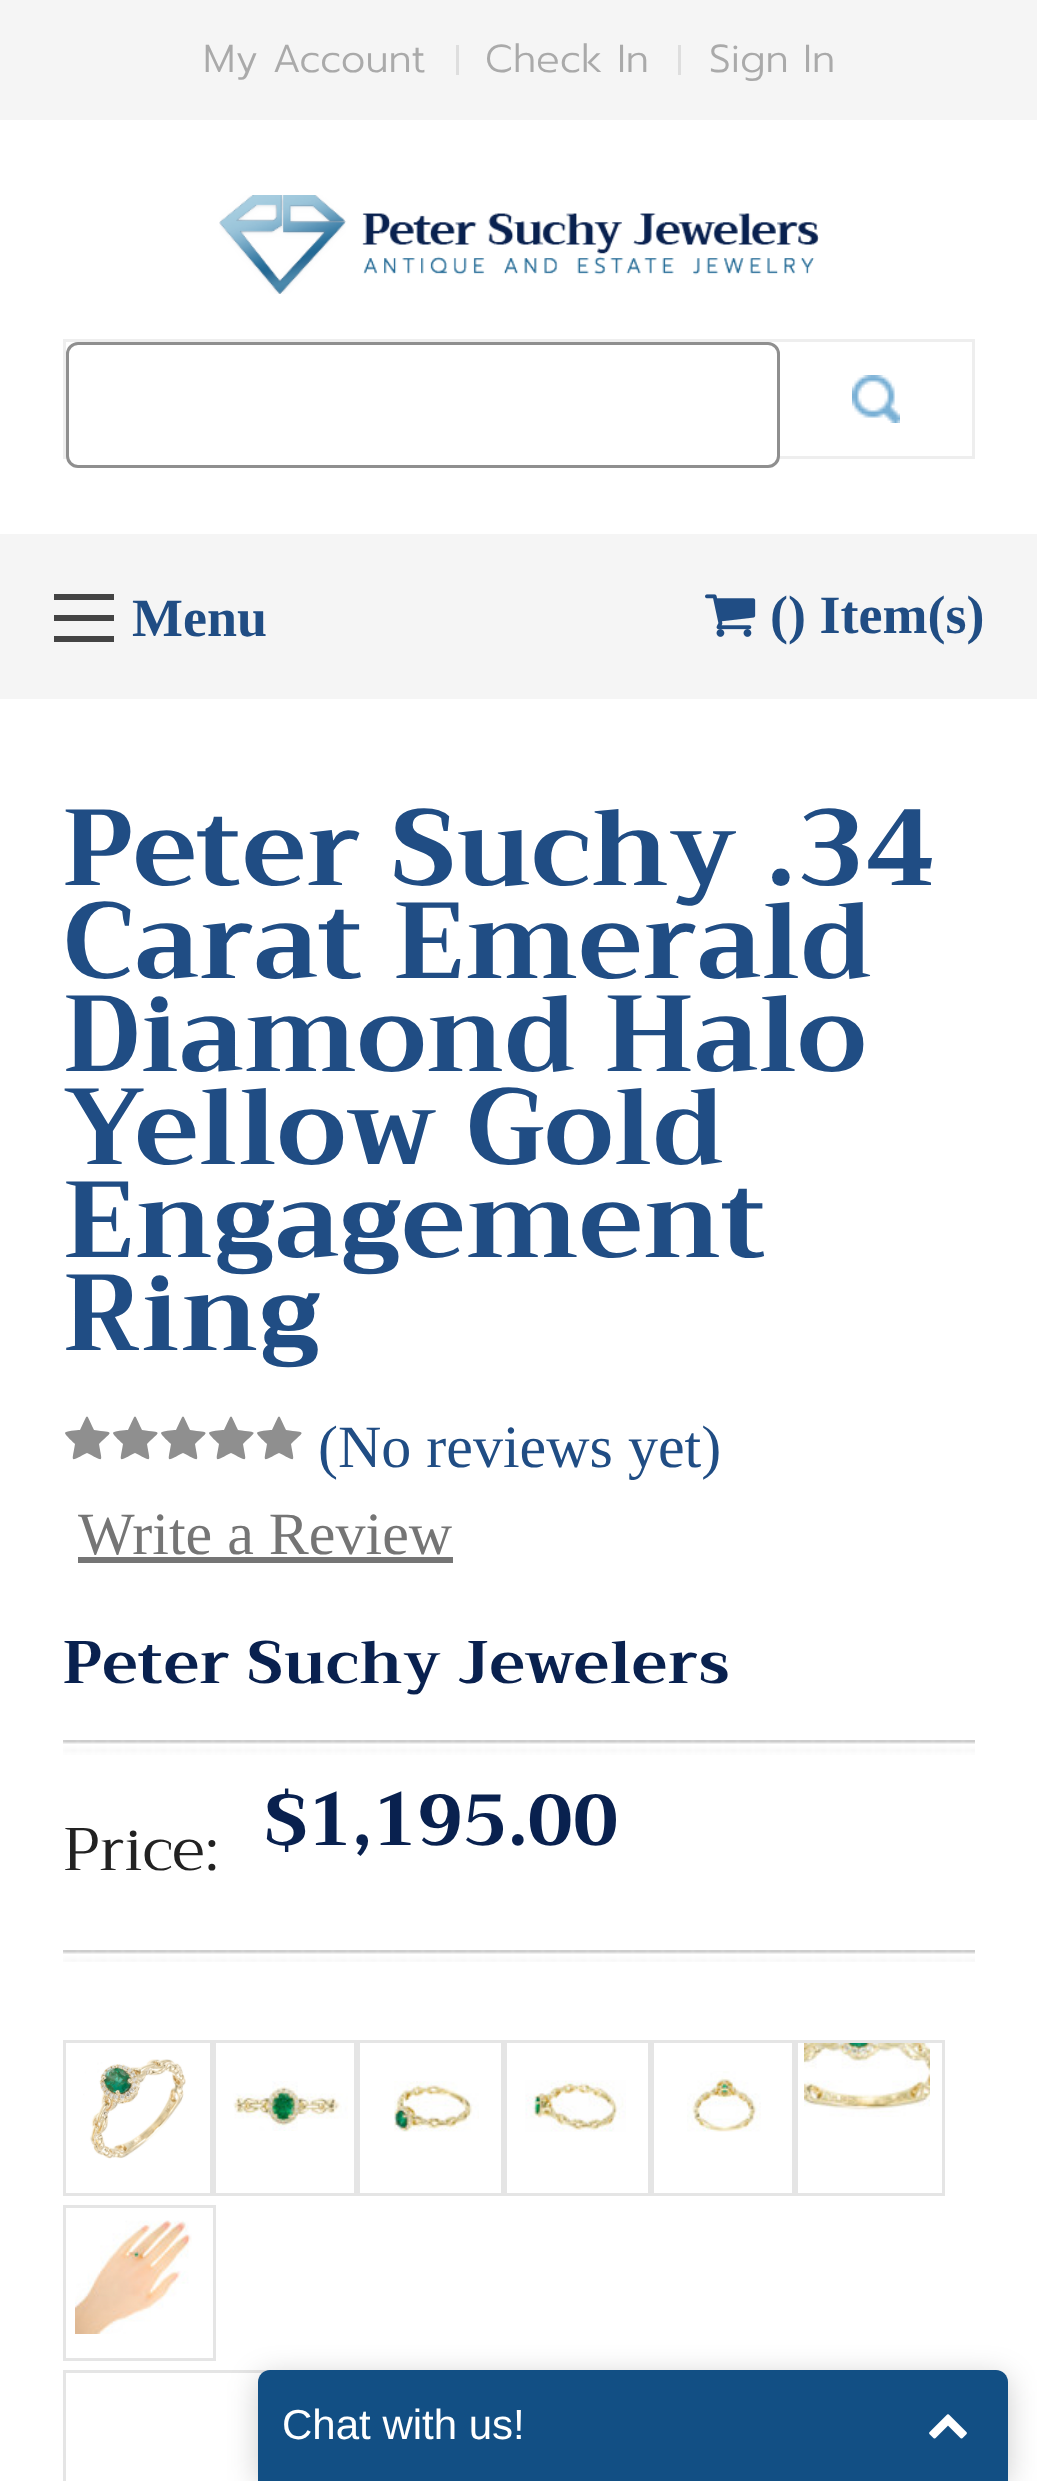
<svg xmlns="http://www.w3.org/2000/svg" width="1037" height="2481">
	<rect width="100%" height="100%" fill="#FFFFFF" />
	<rect x="0" y="0" width="1037" height="120" fill="#F5F5F5" />
	<text x="203" y="72" font-family="Prompt" font-size="39" font-weight="300" fill="#AAAAAA">My Account</text>
	<rect x="456" y="45" width="3" height="30" fill="#DEDEDE" />
	<text x="485" y="72" font-family="Prompt" font-size="39" font-weight="300" fill="#AAAAAA">Check In</text>
	<rect x="678" y="45" width="3" height="30" fill="#DEDEDE" />
	<text x="709" y="72" font-family="Prompt" font-size="39" font-weight="300" fill="#AAAAAA">Sign In</text>
	<image x="219" y="195" width="600" height="99" href="assets/img1.png" />
	<rect x="64.5" y="340.5" width="909" height="117" fill="none" stroke="#EEEEEE" stroke-width="3" />
	<rect x="67.5" y="343.5" width="711" height="123" rx="10.5" fill="#FFFFFF" stroke="#8F8F8F" stroke-width="3" />
	<image x="852" y="375" width="48" height="48" href="assets/img2.png" />
	<rect x="0" y="534" width="1037" height="165" fill="#F5F5F5" />
	<rect x="54" y="615" width="60" height="6" fill="#444444" />
	<rect x="54" y="594" width="60" height="6" fill="#444444" />
	<rect x="54" y="636" width="60" height="6" fill="#444444" />
	<text x="132" y="636" font-family="Liberation Serif" font-size="54" font-weight="700" fill="#204D84">Menu</text>
	<image x="705" y="594" width="51" height="43" href="assets/img3.png" />
	<text x="770" y="633" font-family="Liberation Serif" font-size="54" font-weight="700" fill="#204D84">() Item(s)</text>
	<g font-family="Trirong" font-size="108" font-weight="700" letter-spacing="0.75" fill="#204D84">
		<text x="63" y="885">Peter Suchy .34</text>
		<text x="63" y="978">Carat Emerald</text>
		<text x="63" y="1071">Diamond Halo</text>
		<text x="63" y="1164">Yellow Gold</text>
		<text x="63" y="1257">Engagement</text>
		<text x="63" y="1350">Ring</text>
	</g>
	<path d="M65 1433C65 1431 77 1430 80 1430C89 1412 85 1412 94 1430C115 1433 113 1430 99 1444C102 1463 105 1462 87 1453C69 1462 72 1463 75 1444C74 1443 65 1435 65 1433Z" fill="#8F8F8F" />
	<path d="M113 1433C113 1431 125 1430 128 1430C137 1412 133 1412 142 1430C163 1433 161 1430 147 1444C150 1463 153 1462 135 1453C117 1462 120 1463 123 1444C122 1443 113 1435 113 1433Z" fill="#8F8F8F" />
	<path d="M161 1433C161 1431 173 1430 176 1430C185 1412 181 1412 190 1430C211 1433 209 1430 195 1444C198 1463 201 1462 183 1453C165 1462 168 1463 171 1444C170 1443 161 1435 161 1433Z" fill="#8F8F8F" />
	<path d="M209 1433C209 1431 221 1430 224 1430C233 1412 229 1412 238 1430C259 1433 257 1430 243 1444C246 1463 249 1462 231 1453C213 1462 216 1463 219 1444C218 1443 209 1435 209 1433Z" fill="#8F8F8F" />
	<path d="M257 1433C257 1431 269 1430 272 1430C281 1412 277 1412 286 1430C307 1433 305 1430 291 1444C294 1463 297 1462 279 1453C261 1462 264 1463 267 1444C266 1443 257 1435 257 1433Z" fill="#8F8F8F" />
	<text x="318" y="1467" font-family="Liberation Serif" font-size="60" fill="#204D84">(No reviews yet)</text>
	<text x="78" y="1554" font-family="Liberation Serif" font-size="60" fill="#757575">Write a Review</text>
	<rect x="78" y="1557" width="375" height="6" fill="#757575" />
	<text x="63" y="1683" font-family="Trirong" font-size="60" font-weight="700" letter-spacing="0.75" fill="#09214F">Peter Suchy Jewelers</text>
	<image x="63" y="1740" width="912" height="222" href="assets/img4.png" />
	<text x="63" y="1870" font-family="Trirong" font-size="60" fill="#222222">Price:</text>
	<text x="264" y="1845" font-family="Trirong" font-size="72" font-weight="700" fill="#09214F">$1,195.00</text>
	<rect x="64.5" y="2041.5" width="150" height="153" fill="none" stroke="#E5E5E5" stroke-width="3" />
	<image x="83" y="2059" width="103" height="100" href="assets/img5.png" />
	<rect x="211.5" y="2041.5" width="147" height="153" fill="none" stroke="#E5E5E5" stroke-width="3" />
	<image x="233" y="2081" width="115" height="50" href="assets/img6.png" />
	<rect x="355.5" y="2041.5" width="150" height="153" fill="none" stroke="#E5E5E5" stroke-width="3" />
	<image x="394" y="2081" width="85" height="51" href="assets/img7.png" />
	<rect x="502.5" y="2041.5" width="150" height="153" fill="none" stroke="#E5E5E5" stroke-width="3" />
	<image x="525" y="2080" width="101" height="52" href="assets/img8.png" />
	<rect x="649.5" y="2041.5" width="147" height="153" fill="none" stroke="#E5E5E5" stroke-width="3" />
	<image x="687" y="2071" width="74" height="61" href="assets/img9.png" />
	<rect x="793.5" y="2041.5" width="150" height="153" fill="none" stroke="#E5E5E5" stroke-width="3" />
	<image x="804" y="2043" width="126" height="74" href="assets/img10.png" />
	<rect x="64.5" y="2206.5" width="150" height="153" fill="none" stroke="#E5E5E5" stroke-width="3" />
	<image x="75" y="2220" width="117" height="114" href="assets/img11.png" />
	<rect x="64.5" y="2371.5" width="909" height="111" fill="none" stroke="#E5E5E5" stroke-width="3" />
	<rect x="258" y="2376" width="750" height="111" rx="12" fill="#000000" fill-opacity="0.2" filter="blur(15px)" />
	<path d="M270 2370H996C1002.5 2370 1008 2375.5 1008 2382V2481H258V2382C258 2375.5 263.5 2370 270 2370Z" fill="#124F84" />
	<text x="282" y="2439" font-family="Liberation Sans" font-size="42" fill="#FFFFFF">Chat with us!</text>
	<image x="929" y="2414" width="38" height="25" href="assets/img12.png" />
</svg>
